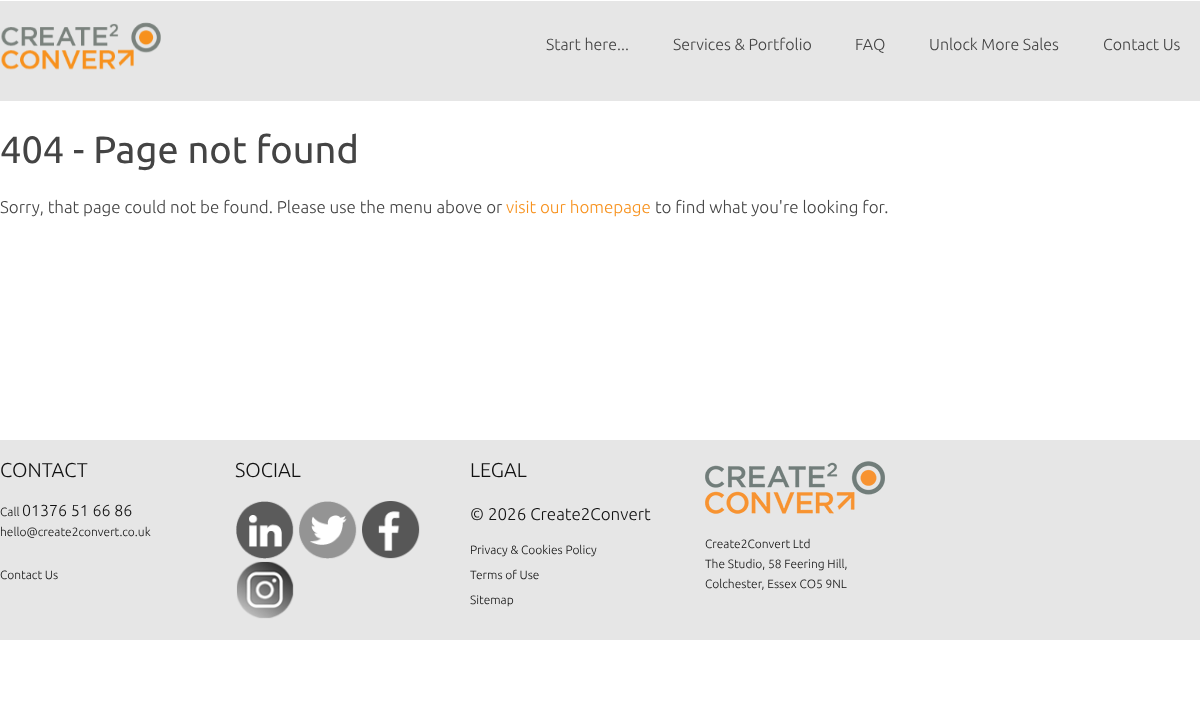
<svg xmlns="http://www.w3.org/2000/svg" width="1200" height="716">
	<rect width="100%" height="100%" fill="#FFFFFF" />
	<rect x="0" y="1" width="1200" height="100" fill="#E6E6E6" />
	<image x="1" y="22" width="160" height="48" href="assets/img1.png" />
	<g font-family="Ubuntu" font-size="16" font-weight="300" fill="#444444">
		<text x="546" y="50">Start here...</text>
		<text x="673" y="50">Services &amp; Portfolio</text>
		<text x="855" y="50">FAQ</text>
		<text x="929" y="50">Unlock More Sales</text>
		<text x="1103" y="50">Contact Us</text>
	</g>
	<text x="0" y="163" font-family="Ubuntu" font-size="38" fill="#444444">404 - Page not found</text>
	<text x="0" y="213" font-family="Ubuntu" font-size="17" font-weight="300" fill="#444444">Sorry, that page could not be found. Please use the menu above or</text>
	<text x="506" y="213" font-family="Ubuntu" font-size="17" font-weight="300" fill="#F7921E">visit our homepage</text>
	<text x="655" y="213" font-family="Ubuntu" font-size="17" font-weight="300" fill="#444444">to find what you're looking for.</text>
	<rect x="0" y="440" width="1200" height="200" fill="#E6E6E6" />
	<text x="0" y="477" font-family="Ubuntu" font-size="20" font-weight="300" fill="#111111">CONTACT</text>
	<text x="0" y="516" font-family="Ubuntu" font-size="12" font-weight="300" fill="#111111">Call</text>
	<text x="22" y="516" font-family="Ubuntu" font-size="16" font-weight="300" fill="#111111">01376 51 66 86</text>
	<g font-family="Ubuntu" font-size="12" font-weight="300" fill="#111111">
		<text x="0" y="536">hello@create2convert.co.uk</text>
		<text x="0" y="579">Contact Us</text>
	</g>
	<text x="235" y="477" font-family="Ubuntu" font-size="20" font-weight="300" fill="#111111">SOCIAL</text>
	<image x="236" y="501" width="58" height="58" href="assets/img2.png" />
	<image x="299" y="501" width="58" height="58" href="assets/img3.png" />
	<image x="362" y="501" width="58" height="58" href="assets/img4.png" />
	<image x="236" y="561" width="58" height="58" href="assets/img5.png" />
	<text x="470" y="477" font-family="Ubuntu" font-size="20" font-weight="300" fill="#111111">LEGAL</text>
	<text x="470" y="520" font-family="Ubuntu" font-size="17" font-weight="300" fill="#111111">© 2026 Create2Convert</text>
	<g font-family="Ubuntu" font-size="12" font-weight="300" fill="#111111">
		<text x="470" y="554">Privacy &amp; Cookies Policy</text>
		<text x="470" y="579">Terms of Use</text>
		<text x="470" y="604">Sitemap</text>
	</g>
	<image x="705" y="461" width="180" height="53" href="assets/img6.png" />
	<g font-family="Ubuntu" font-size="12" font-weight="300" fill="#111111">
		<text x="705" y="548">Create2Convert Ltd</text>
		<text x="705" y="568">The Studio, 58 Feering Hill,</text>
		<text x="705" y="588">Colchester, Essex CO5 9NL</text>
	</g>
</svg>
